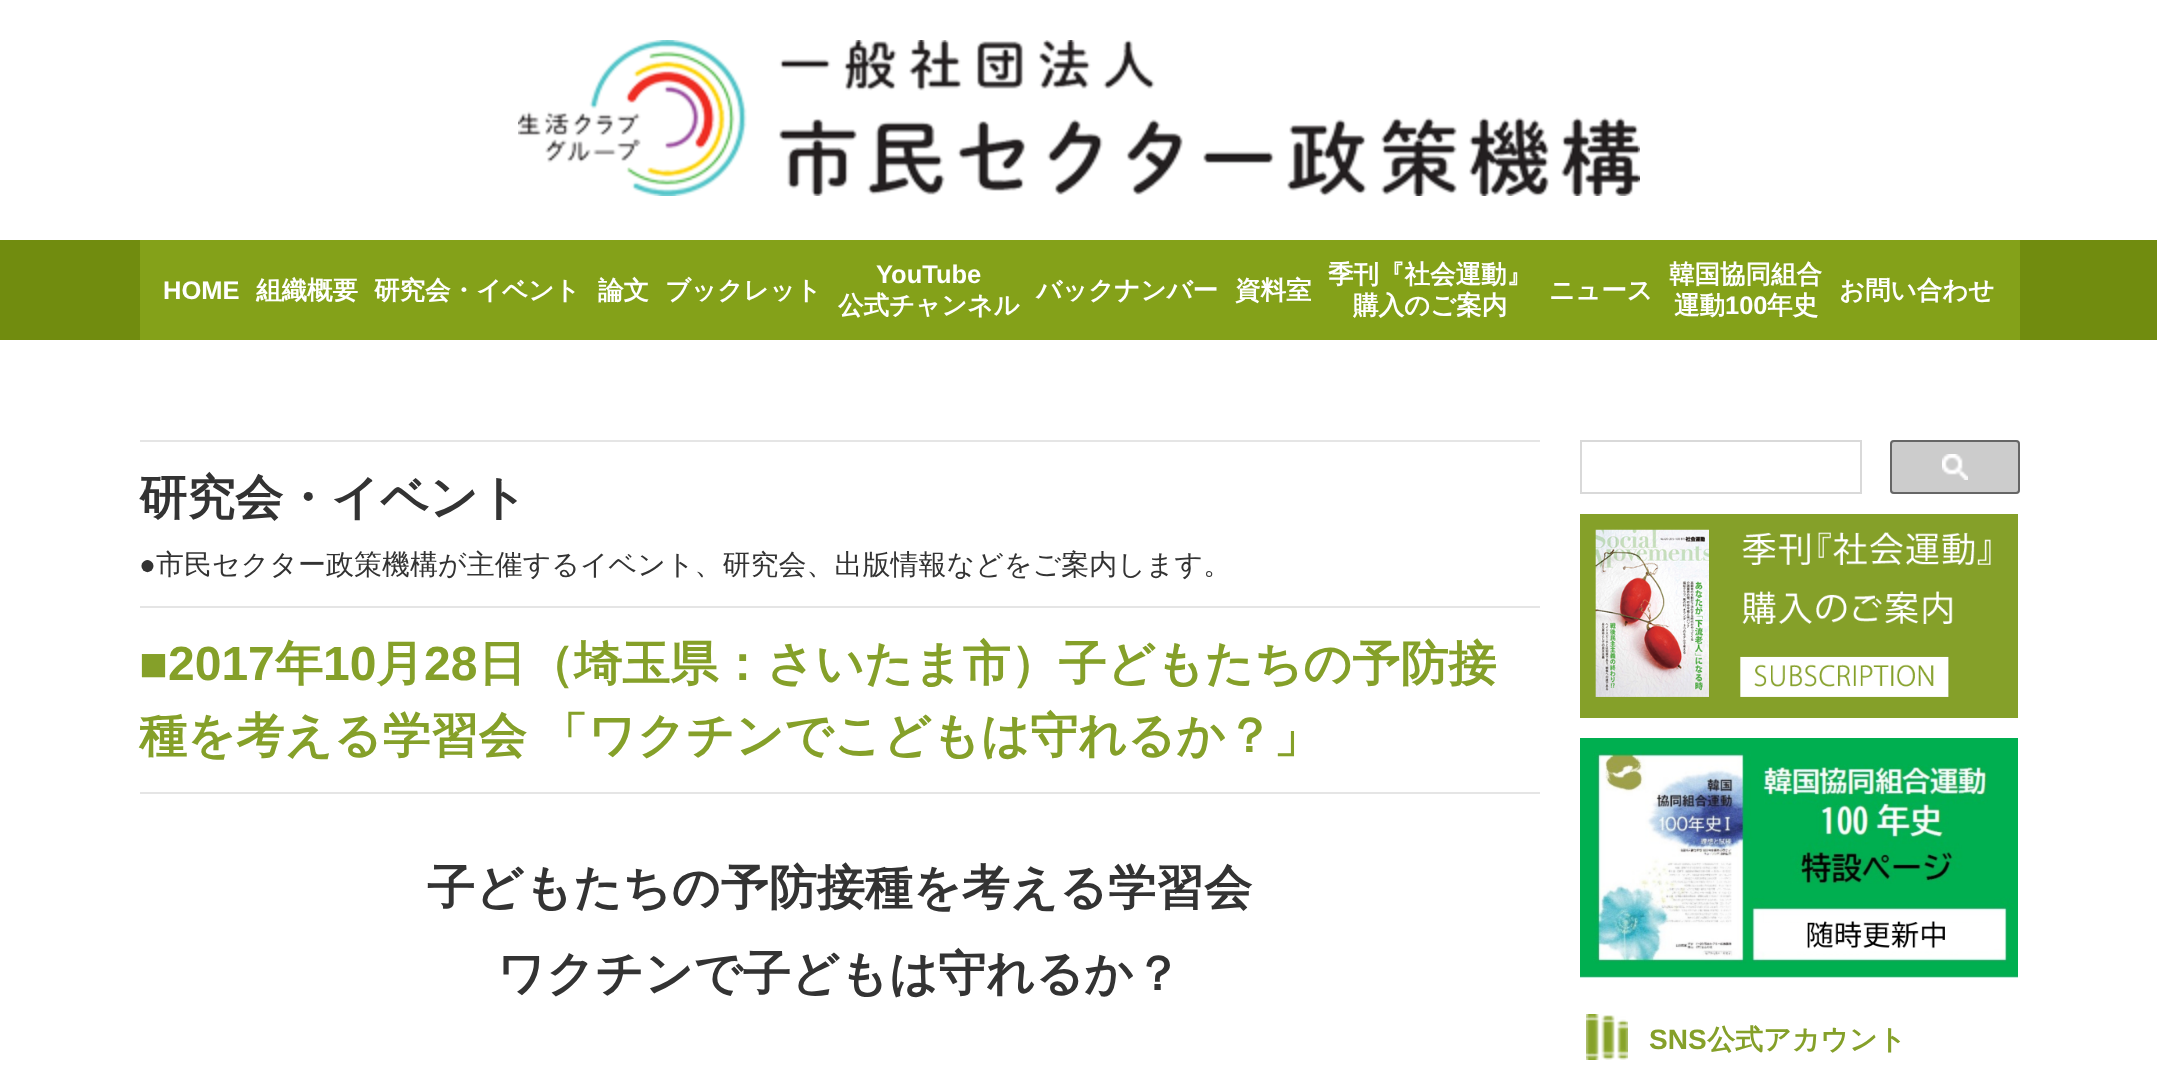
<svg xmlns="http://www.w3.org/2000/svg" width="2157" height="1080">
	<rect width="100%" height="100%" fill="#FFFFFF" />
	<image x="518" y="40" width="1122" height="156" href="assets/img1.png" />
	<rect x="0" y="240" width="2157" height="100" fill="#718C0F" />
	<rect x="140" y="240" width="1880" height="100" fill="#84A119" />
	<text x="163" y="299" font-family="Liberation Sans" font-size="25.5" font-weight="700" fill="#FFFFFF">HOME</text>
	<g font-family="WenQuanYi Zen Hei" font-size="25.5" font-weight="700" fill="#FFFFFF">
		<text x="256" y="299">組織概要</text>
		<text x="374" y="299">研究会・イベント</text>
		<text x="598" y="299">論文</text>
		<text x="665" y="299">ブックレット</text>
	</g>
	<text x="876" y="283" font-family="Liberation Sans" font-size="25.5" font-weight="700" fill="#FFFFFF">YouTube</text>
	<g font-family="WenQuanYi Zen Hei" font-size="25.5" font-weight="700" fill="#FFFFFF">
		<text x="838" y="314">公式チャンネル</text>
		<text x="1036" y="299">バックナンバー</text>
		<text x="1235" y="299">資料室</text>
		<text x="1328" y="283">季刊『社会運動』</text>
		<text x="1353" y="314">購入のご案内</text>
		<text x="1549" y="299">ニュース</text>
		<text x="1669" y="283">韓国協同組合</text>
		<text x="1674" y="314">運動</text>
	</g>
	<text x="1725" y="314" font-family="Liberation Sans" font-size="25.5" font-weight="700" fill="#FFFFFF">100</text>
	<g font-family="WenQuanYi Zen Hei" font-size="25.5" font-weight="700" fill="#FFFFFF">
		<text x="1767" y="314">年史</text>
		<text x="1839" y="299">お問い合わせ</text>
	</g>
	<rect x="140" y="440" width="1400" height="2" fill="#E5E5E5" />
	<rect x="140" y="792" width="1400" height="2" fill="#E5E5E5" />
	<text x="139" y="514" font-family="WenQuanYi Zen Hei" font-size="48" font-weight="700" fill="#333333">研究会・イベント</text>
	<text x="139" y="574" font-family="Liberation Sans" font-size="28" fill="#333333">●</text>
	<text x="156" y="574" font-family="WenQuanYi Zen Hei" font-size="28" font-weight="500" fill="#333333">市民セクター政策機構が主催するイベント、研究会、出版情報などをご案内します。</text>
	<rect x="140" y="606" width="1400" height="2" fill="#E5E5E5" />
	<text x="139" y="680" font-family="Liberation Sans" font-size="48" font-weight="700" fill="#85A029">■2017</text>
	<text x="275" y="680" font-family="WenQuanYi Zen Hei" font-size="48" font-weight="700" fill="#85A029">年</text>
	<text x="323" y="680" font-family="Liberation Sans" font-size="48" font-weight="700" fill="#85A029">10</text>
	<text x="376" y="680" font-family="WenQuanYi Zen Hei" font-size="48" font-weight="700" fill="#85A029">月</text>
	<text x="424" y="680" font-family="Liberation Sans" font-size="48" font-weight="700" fill="#85A029">28</text>
	<g font-family="WenQuanYi Zen Hei" font-size="48" font-weight="700" fill="#85A029">
		<text x="478" y="680">日（埼玉県：さいたま市）子どもたちの予防接</text>
		<text x="139" y="752" word-spacing="-1">種を考える学習会 「ワクチンでこどもは守れるか？」</text>
	</g>
	<g font-family="WenQuanYi Zen Hei" font-size="48" font-weight="700" fill="#333333">
		<text x="427" y="904">子どもたちの予防接種を考える学習会</text>
		<text x="497" y="990">ワクチンで子どもは守れるか？</text>
	</g>
	<rect x="1581" y="441" width="280" height="52" fill="none" stroke="#D9D9D9" stroke-width="2" />
	<rect x="1890" y="440" width="130" height="54" rx="4" fill="#CCCCCC" />
	<image x="1942" y="454" width="26" height="26" href="assets/img2.png" />
	<rect x="1891" y="441" width="128" height="52" rx="3" fill="none" stroke="#666666" stroke-width="2" />
	<image x="1580" y="514" width="438" height="204" href="assets/img3.png" />
	<image x="1580" y="738" width="438" height="240" href="assets/img4.png" />
	<image x="1586" y="1014" width="42" height="46" href="assets/img5.png" />
	<text x="1649" y="1049" font-family="Liberation Sans" font-size="28" font-weight="700" fill="#85A029">SNS</text>
	<text x="1707" y="1049" font-family="WenQuanYi Zen Hei" font-size="28" font-weight="700" fill="#85A029">公式アカウント</text>
</svg>
